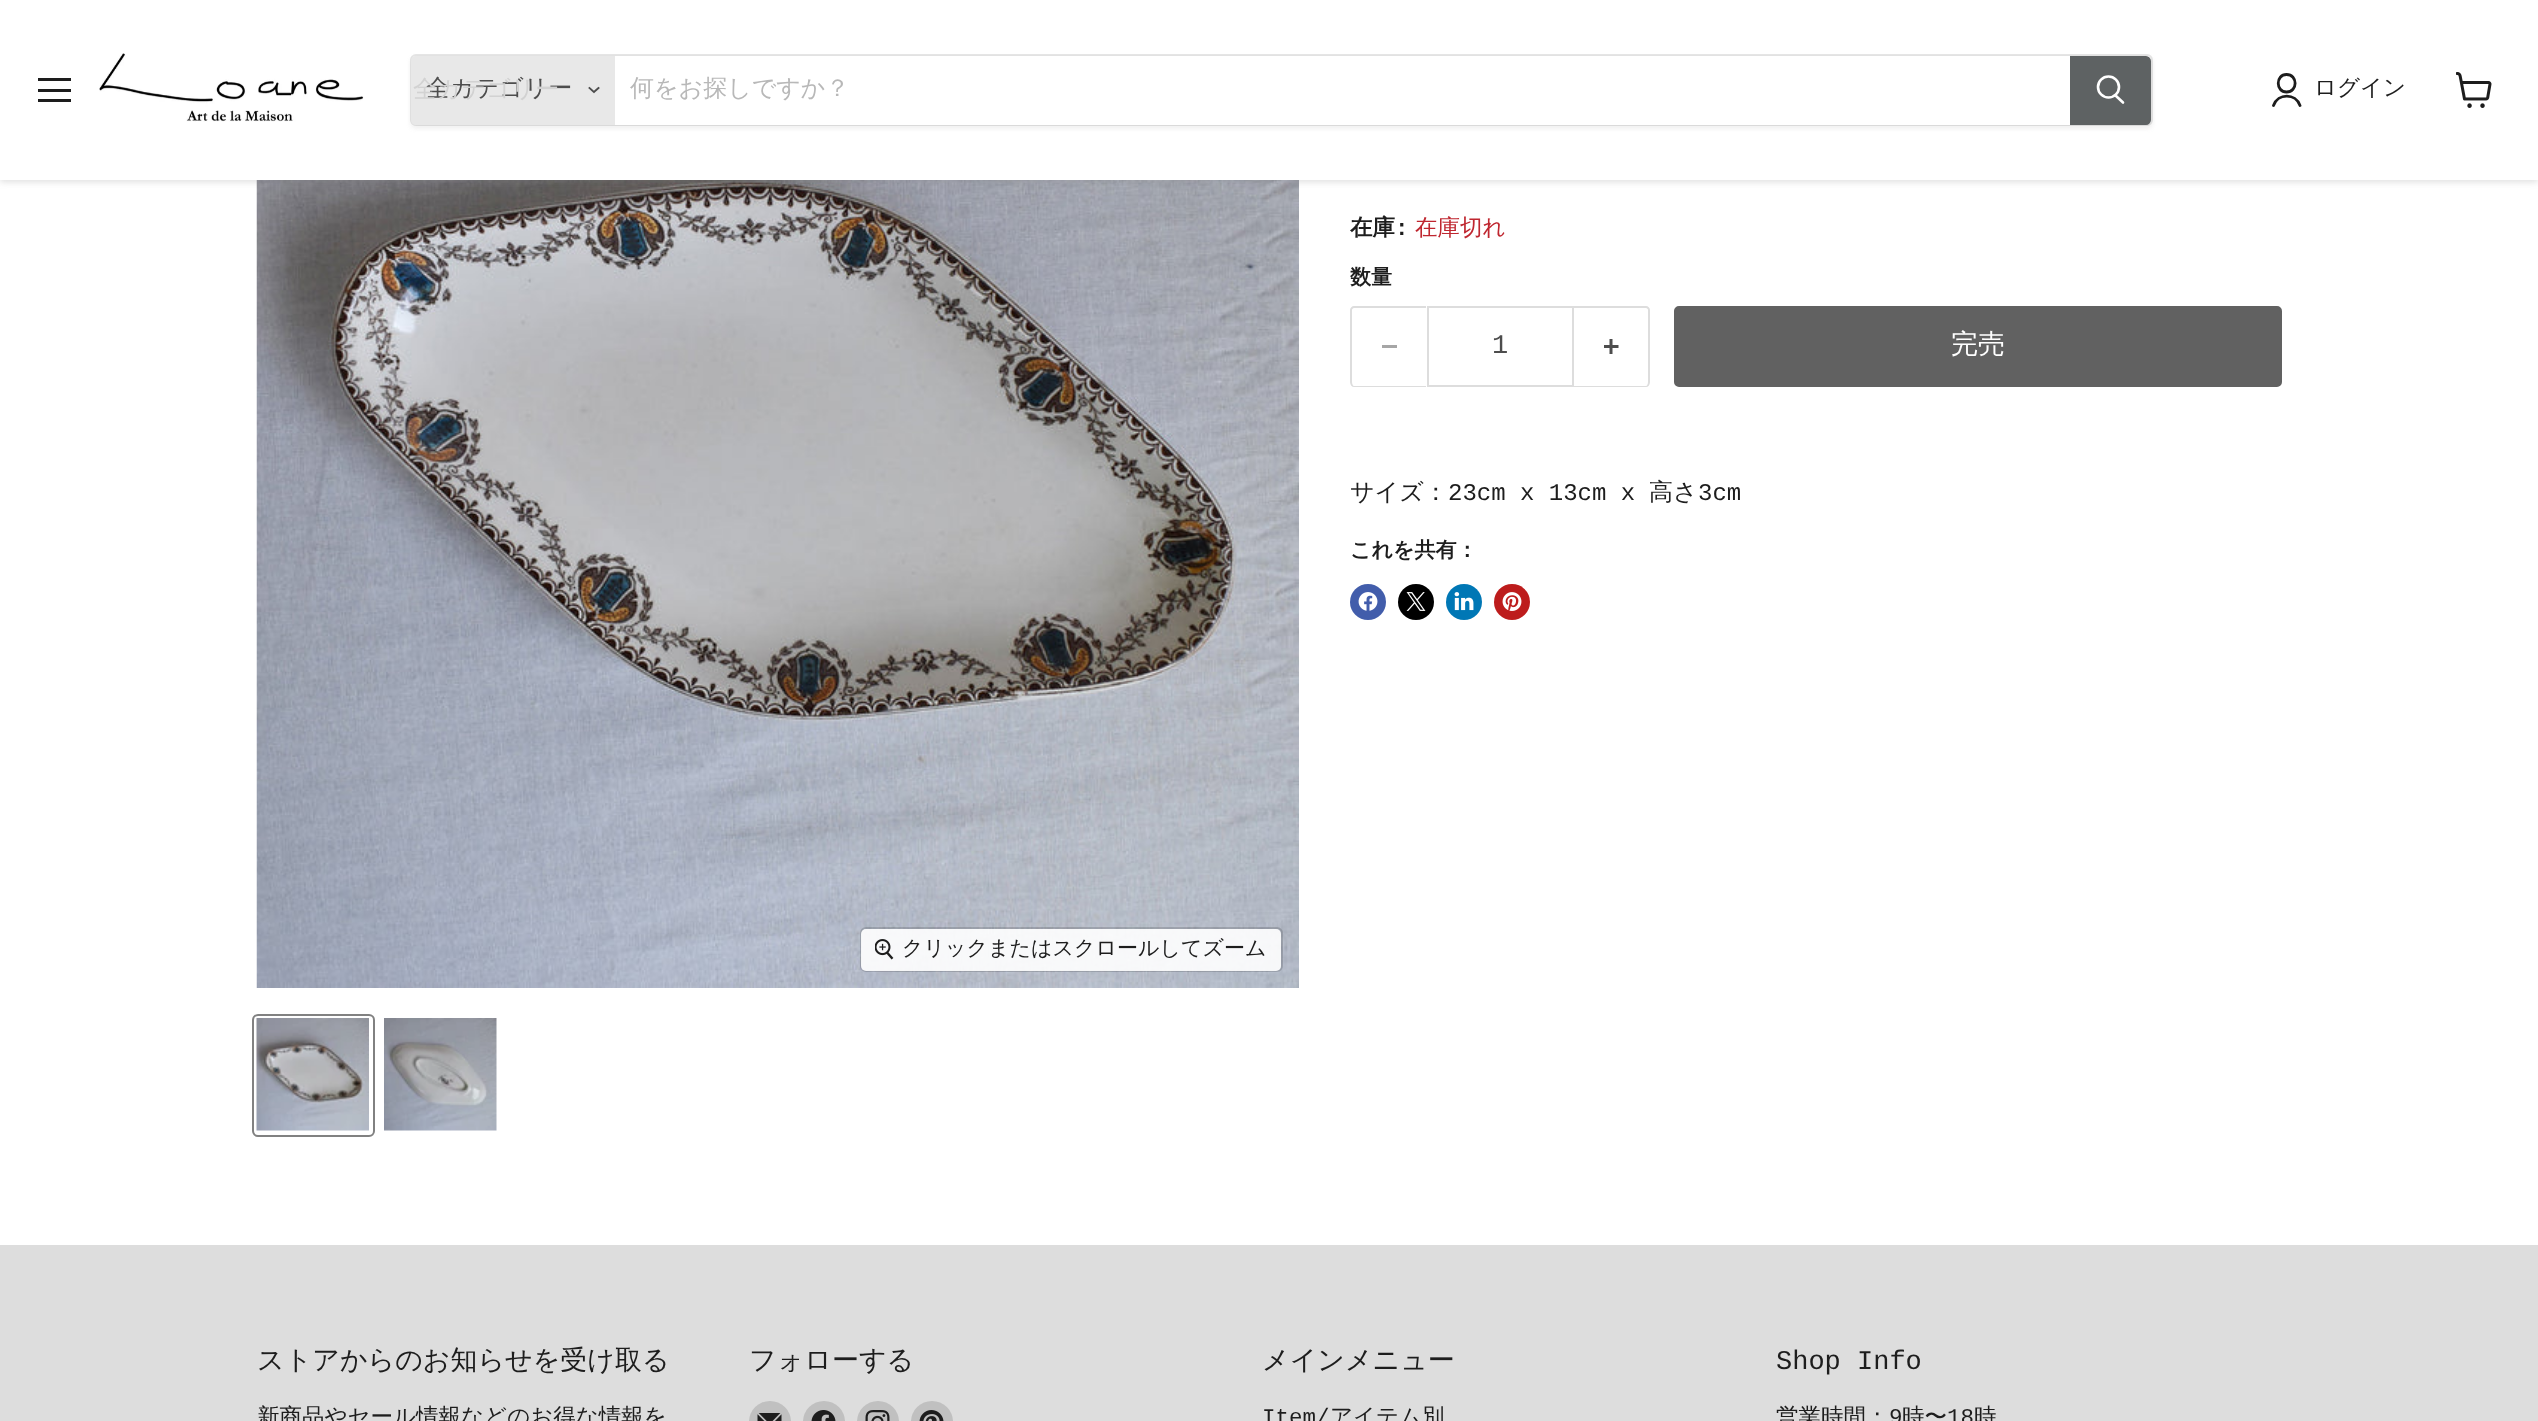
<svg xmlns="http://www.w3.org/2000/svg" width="2538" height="1421">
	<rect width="100%" height="100%" fill="#FFFFFF" />
	<image x="256" y="180" width="1043" height="808" href="assets/img8.png" />
	<rect x="0" y="2" width="2538" height="180" fill="#808080" fill-opacity="0.25" filter="blur(3px)" />
	<rect x="0" y="0" width="2538" height="180" fill="#FFFFFF" />
	<rect x="38" y="78" width="33" height="3" fill="#1D1D1D" />
	<rect x="38" y="89" width="33" height="3" fill="#1D1D1D" />
	<rect x="38" y="99" width="33" height="3" fill="#1D1D1D" />
	<image x="99" y="53" width="265" height="69" href="assets/img1.png" />
	<rect x="410" y="57" width="1743" height="72" rx="6" fill="#808080" fill-opacity="0.11" filter="blur(2px)" />
	<rect x="411" y="55" width="1741" height="70" rx="5" fill="none" stroke="#808080" stroke-opacity="0.2" stroke-width="2" />
	<path d="M416 56H615V125H416C413 125 411 123 411 120V61C411 58 413 56 416 56Z" fill="#E8E8E8" />
	<text x="426" y="96" font-family="WenQuanYi Zen Hei" font-size="24" font-weight="500" fill="#4D4D4D">全カテゴリー</text>
	<text x="413" y="97" font-family="WenQuanYi Zen Hei" font-size="24" font-weight="500" fill="#D2D2D2">全カテゴリー</text>
	<path d="M594 92L598.5 88M594 92L589.5 88" fill="none" stroke="#4D4D4D" stroke-width="1.9" stroke-linecap="square" />
	<rect x="615" y="56" width="1455" height="69" fill="#FFFFFF" />
	<text x="630" y="96" font-family="WenQuanYi Zen Hei" font-size="24" font-weight="500" fill="#B8B8B8">何をお探しですか？</text>
	<path d="M2071 57H2146C2148 57 2150 59 2150 61V120C2150 122 2148 124 2146 124H2071Z" fill="#5E6263" stroke="#5E6263" stroke-width="2" />
	<path d="M2123 102.5L2115.5 95.5" fill="none" stroke="#FFFFFF" stroke-width="2.6" stroke-linecap="round" />
	<circle cx="2108.5" cy="87" r="10.5" fill="none" stroke="#FFFFFF" stroke-width="2.6" />
	<path d="M2286.5 92C2298 92 2298 74.5 2286.5 74.5C2275.5 74.5 2275.5 92 2286.5 92ZM2300 105.5C2295.5 93 2278 93 2273.5 105.5" fill="none" stroke="#1D1D1D" stroke-width="2.8" stroke-linecap="round" stroke-linejoin="round" />
	<text x="2314" y="95" font-family="WenQuanYi Zen Hei" font-size="22.5" font-weight="500" fill="#1D1D1D">ログイン</text>
	<image x="2456" y="72" width="36" height="36" href="assets/img2.png" />
	<text x="1350" y="235" font-family="WenQuanYi Zen Hei" font-size="22.5" font-weight="700" fill="#1D1D1D">在庫</text>
	<text x="1395" y="235" font-family="Liberation Mono" font-size="22.5" font-weight="700" fill="#1D1D1D">:</text>
	<text x="1415" y="235" font-family="WenQuanYi Zen Hei" font-size="22.5" font-weight="500" fill="#BF262F">在庫切れ</text>
	<text x="1350" y="284" font-family="WenQuanYi Zen Hei" font-size="21" font-weight="700" fill="#1D1D1D">数量</text>
	<path d="M1354 306H1426V387H1354C1352 387 1350 385 1350 382V310C1350 308 1352 306 1354 306ZM1354 308H1426V386H1354C1353 386 1352 384 1352 382V310C1352 309 1353 308 1354 308Z" fill="#DDDDDD" fill-rule="evenodd" />
	<rect x="1382" y="345" width="15" height="3" fill="#A6A6A6" />
	<rect x="1428" y="307" width="145" height="79" fill="none" stroke="#DDDDDD" stroke-width="2" />
	<text x="1492" y="353" font-family="Liberation Mono" font-size="27" fill="#4D4D4D">1</text>
	<path d="M1574 306H1646C1648 306 1650 308 1650 310V382C1650 385 1648 387 1646 387H1574ZM1574 308H1646C1647 308 1648 309 1648 310V382C1648 384 1647 386 1646 386H1574Z" fill="#DDDDDD" fill-rule="evenodd" />
	<image x="1604" y="339" width="15" height="15" href="assets/img3.png" />
	<rect x="1675" y="307" width="606" height="79" rx="4" fill="#616161" stroke="#616161" stroke-width="2" />
	<text x="1951" y="353" font-family="WenQuanYi Zen Hei" font-size="27" font-weight="500" fill="#FFFFFF">完売</text>
	<text x="1350" y="500" font-family="WenQuanYi Zen Hei" font-size="24" font-weight="500" fill="#1D1D1D">サイズ：</text>
	<text x="1448" y="500" font-family="Liberation Mono" font-size="24" fill="#1D1D1D">23cm x 13cm x</text>
	<text x="1649" y="500" font-family="WenQuanYi Zen Hei" font-size="24" font-weight="500" fill="#1D1D1D">高さ</text>
	<text x="1698" y="500" font-family="Liberation Mono" font-size="24" fill="#1D1D1D">3cm</text>
	<text x="1350" y="557" font-family="WenQuanYi Zen Hei" font-size="21" font-weight="700" fill="#1D1D1D">これを共有：</text>
	<circle cx="1368" cy="602" r="18" fill="#425DAB" />
	<image x="1358" y="592" width="20" height="19" href="assets/img4.png" />
	<circle cx="1416" cy="602" r="18" fill="#000000" />
	<image x="1406" y="592" width="20" height="19" href="assets/img5.png" />
	<circle cx="1464" cy="602" r="18" fill="#0077B5" />
	<image x="1454" y="592" width="20" height="19" href="assets/img6.png" />
	<circle cx="1512" cy="602" r="18" fill="#BD1C1C" />
	<image x="1502" y="592" width="20" height="19" href="assets/img7.png" />
	<rect x="861" y="928" width="421" height="43" rx="5" fill="none" stroke="#000000" stroke-opacity="0.15" stroke-width="2" />
	<rect x="861" y="929" width="420" height="42" rx="5" fill="#FFFFFF" fill-opacity="0.9" />
	<image x="875" y="939" width="19" height="21" href="assets/img9.png" />
	<text x="902" y="955" font-family="WenQuanYi Zen Hei" font-size="21" font-weight="500" fill="#1D1D1D">クリックまたはスクロールしてズーム</text>
	<rect x="253" y="1015" width="121" height="121" rx="5" fill="none" stroke="#818181" stroke-width="2" />
	<image x="256" y="1018" width="113" height="113" href="assets/img10.png" />
	<image x="384" y="1018" width="113" height="113" href="assets/img11.png" />
	<rect x="0" y="1245" width="2538" height="176" fill="#DDDDDD" />
	<text x="257" y="1369" font-family="WenQuanYi Zen Hei" font-size="27" font-weight="500" fill="#1D1D1D">ストアからのお知らせを受け取る</text>
	<text x="257" y="1424" font-family="WenQuanYi Zen Hei" font-size="22.5" font-weight="500" fill="#1D1D1D">新商品やセール情報などのお得な情報を</text>
	<text x="749" y="1369" font-family="WenQuanYi Zen Hei" font-size="27" font-weight="500" fill="#1D1D1D">フォローする</text>
	<rect x="749" y="1401" width="42" height="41" rx="21" fill="#C0C0C0" />
	<image x="757" y="1413" width="25" height="8" href="assets/img12.png" />
	<rect x="803" y="1401" width="42" height="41" rx="21" fill="#C0C0C0" />
	<image x="811" y="1410" width="25" height="11" href="assets/img13.png" />
	<rect x="857" y="1401" width="42" height="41" rx="21" fill="#C0C0C0" />
	<image x="865" y="1410" width="25" height="11" href="assets/img14.png" />
	<rect x="911" y="1401" width="42" height="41" rx="21" fill="#C0C0C0" />
	<image x="919" y="1410" width="25" height="11" href="assets/img15.png" />
	<text x="1262" y="1369" font-family="WenQuanYi Zen Hei" font-size="27" font-weight="500" fill="#1D1D1D">メインメニュー</text>
	<text x="1262" y="1424" font-family="Liberation Mono" font-size="22.5" fill="#1D1D1D">Item/</text>
	<text x="1330" y="1424" font-family="WenQuanYi Zen Hei" font-size="22.5" font-weight="500" fill="#1D1D1D">アイテム別</text>
	<text x="1776" y="1369" font-family="Liberation Mono" font-size="27" fill="#1D1D1D">Shop Info</text>
	<text x="1776" y="1424" font-family="WenQuanYi Zen Hei" font-size="22.5" font-weight="500" fill="#1D1D1D">営業時間：</text>
	<text x="1889" y="1424" font-family="Liberation Mono" font-size="22.5" fill="#1D1D1D">9</text>
	<text x="1902" y="1424" font-family="WenQuanYi Zen Hei" font-size="22.5" font-weight="500" fill="#1D1D1D">時〜</text>
	<text x="1947" y="1424" font-family="Liberation Mono" font-size="22.5" fill="#1D1D1D">18</text>
	<text x="1974" y="1424" font-family="WenQuanYi Zen Hei" font-size="22.5" font-weight="500" fill="#1D1D1D">時</text>
</svg>
